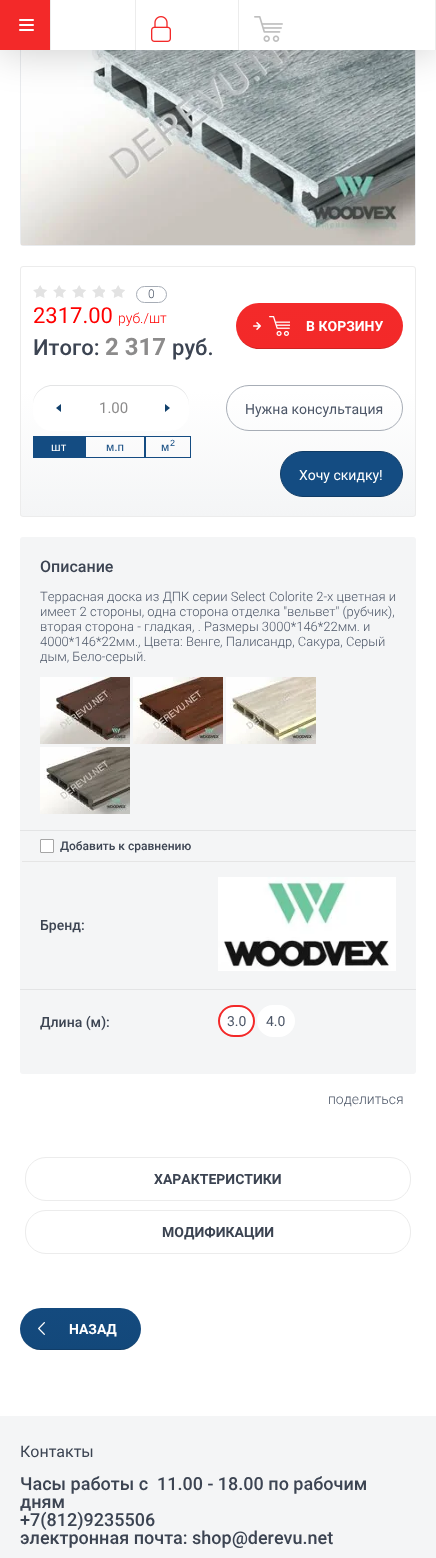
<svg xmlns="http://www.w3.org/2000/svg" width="436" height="1558">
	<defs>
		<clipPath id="clip1"><rect x="20" y="266" width="396" height="251" rx="3" /></clipPath>
		<linearGradient id="g1" gradientUnits="userSpaceOnUse" x1="218" y1="516" x2="218" y2="267"><stop offset="0" stop-color="#F4F5F6" /><stop offset="0.5" stop-color="#FFFFFF" /></linearGradient>
		<linearGradient id="g2" gradientUnits="userSpaceOnUse" x1="320" y1="349" x2="320" y2="303"><stop offset="0" stop-color="#F32929" /><stop offset="1" stop-color="#F32A2A" /></linearGradient>
		<linearGradient id="g3" gradientUnits="userSpaceOnUse" x1="81" y1="1350" x2="81" y2="1308"><stop offset="0" stop-color="#13487A" /><stop offset="1" stop-color="#144A7E" /></linearGradient>
	</defs>
	<rect width="100%" height="100%" fill="#FFFFFF" />
	<rect x="20.5" y="-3.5" width="395" height="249" rx="2.5" fill="none" stroke="#E9EBEE" />
	<image x="21" y="50" width="394" height="195" href="assets/img4.png" />
	<rect x="0" y="1" width="436" height="50" fill="#000000" fill-opacity="0.2" filter="blur(20px)" />
	<rect x="51" y="0" width="384" height="50" fill="#FFFFFF" />
	<rect x="0" y="0" width="50" height="50" fill="#F32929" />
	<image x="19" y="19" width="15" height="12" href="assets/img1.png" />
	<rect x="50" y="0" width="1" height="50" fill="#ECECEC" />
	<rect x="135" y="0" width="1" height="50" fill="#ECECEC" />
	<rect x="238" y="0" width="1" height="50" fill="#ECECEC" />
	<image x="151" y="16" width="20" height="26" href="assets/img2.png" />
	<rect x="435" y="0" width="1" height="50" fill="#ECECEC" />
	<image x="254" y="16" width="29" height="26" href="assets/img3.png" />
	<g clip-path="url(#clip1)">
		<rect x="20" y="267" width="396" height="249" fill="url(#g1)" />
	</g>
	<rect x="20.5" y="266.5" width="395" height="250" rx="2.5" fill="none" stroke="#ECECEC" />
	<image x="33" y="285" width="92" height="13" href="assets/img5.png" />
	<rect x="136.5" y="286.5" width="30" height="16" rx="8" fill="none" stroke="#A7ADB6" />
	<text x="148" y="298" font-family="Roboto" font-size="12" font-weight="300" fill="#4C5667">0</text>
	<text x="33" y="323" font-family="Roboto" font-size="22" fill="#FF0000">2317.00</text>
	<text x="118" y="323" font-family="Roboto" font-size="14" font-weight="300" fill="#FF0000">руб./шт</text>
	<text x="33" y="355" font-family="Roboto" font-size="22" font-weight="500" fill="#3C4452">Итого:</text>
	<text x="105" y="355" font-family="Roboto" font-size="24" font-weight="700" fill="#8C8B8B">2 317</text>
	<text x="172" y="355" font-family="Roboto" font-size="22" font-weight="500" fill="#3C4452">руб.</text>
	<rect x="236" y="303" width="167" height="46" rx="23" fill="url(#g2)" />
	<path d="M236 326C236 339 246 349 259 349H380C393 349 403 339 403 326C403 338 393 348 380 348H259C246 348 236 338 236 326Z" fill="#000000" fill-opacity="0.14" />
	<image x="253" y="322" width="8" height="8" href="assets/img6.png" />
	<image x="269" y="316" width="21" height="20" href="assets/img7.png" />
	<text x="306" y="331" font-family="Roboto" font-size="14" font-weight="700" fill="#FFFFFF">В КОРЗИНУ</text>
	<rect x="33" y="385" width="156" height="46" rx="19" fill="#FFFFFF" />
	<path d="M52 386H170C180 386 189 395 189 405V404C189 394 180 385 170 385H52C42 385 33 394 33 404V405C33 395 42 386 52 386Z" fill="#E3E4E5" />
	<path d="M61 404V412L56 408Z" fill="#11406C" />
	<text x="99" y="413" font-family="Roboto" font-size="15" fill="#8C8B8B">1.00</text>
	<path d="M165 412V404L170 408Z" fill="#11406C" />
	<rect x="33" y="436" width="52" height="22" fill="#144C82" />
	<text x="51" y="451" font-family="Liberation Sans" font-size="12" fill="#FFFFFF">шт</text>
	<rect x="85.5" y="436.5" width="59" height="21" fill="none" stroke="#144C82" />
	<text x="106" y="451" font-family="Liberation Sans" font-size="12" fill="#144C82">м.п</text>
	<rect x="145.5" y="436.5" width="45" height="21" fill="none" stroke="#144C82" />
	<text x="170" y="446" font-family="Liberation Sans" font-size="9" fill="#144C82">2</text>
	<text x="161" y="451" font-family="Liberation Sans" font-size="12" fill="#144C82">м</text>
	<rect x="226.5" y="385.5" width="176" height="45" rx="22.5" fill="none" stroke="#A7ADB6" />
	<text x="245" y="414" font-family="Roboto" font-size="14" fill="#4C5667">Нужна консультация</text>
	<rect x="280.5" y="451.5" width="122" height="45" rx="22.5" fill="#144C82" stroke="#103C66" />
	<text x="299" y="480" font-family="Roboto" font-size="14" fill="#FFFFFF">Хочу скидку!</text>
	<rect x="20" y="537" width="396" height="537" rx="3" fill="#F4F5F6" />
	<rect x="20" y="830" width="396" height="1" fill="#E3E4E5" />
	<text x="40" y="572" font-family="Roboto" font-size="16" font-weight="500" fill="#3C4452">Описание</text>
	<g font-family="Roboto" font-size="13" font-weight="300" fill="#4C5667">
		<text x="40" y="601">Террасная доска из ДПК серии Select Colorite 2-х цветная и</text>
		<text x="40" y="616">имеет 2 стороны, одна сторона отделка "вельвет" (рубчик),</text>
		<text x="40" y="631">вторая сторона - гладкая, . Размеры 3000*146*22мм. и</text>
		<text x="40" y="646">4000*146*22мм., Цвета: Венге, Палисандр, Сакура, Серый</text>
		<text x="40" y="661">дым, Бело-серый.</text>
	</g>
	<image x="40" y="677" width="90" height="67" href="assets/img8.png" />
	<image x="133" y="677" width="90" height="67" href="assets/img9.png" />
	<image x="226" y="677" width="90" height="67" href="assets/img10.png" />
	<image x="40" y="747" width="90" height="67" href="assets/img11.png" />
	<rect x="22" y="861" width="393" height="1" fill="#E5E5E5" />
	<rect x="40" y="839" width="14" height="14" rx="1" fill="#FFFFFF" />
	<rect x="40.5" y="839.5" width="13" height="13" rx="0.5" fill="none" stroke="#202020" stroke-opacity="0.4" />
	<text x="60" y="850" font-family="Roboto" font-size="12" font-weight="500" fill="#3C4452">Добавить к сравнению</text>
	<text x="40" y="930" font-family="Roboto" font-size="14" font-weight="500" fill="#3C4452">Бренд:</text>
	<image x="218" y="877" width="178" height="94" href="assets/img12.png" />
	<rect x="20" y="989" width="396" height="1" fill="#E3E4E5" />
	<text x="40" y="1027" font-family="Roboto" font-size="14" font-weight="500" fill="#3C4452">Длина (м):</text>
	<rect x="219" y="1006" width="35" height="30" rx="15" fill="#FFFFFF" stroke="#F32929" stroke-width="2" />
	<text x="227" y="1026" font-family="Roboto" font-size="14" fill="#4C5667">3.0</text>
	<rect x="257" y="1005" width="38" height="32" rx="16" fill="#FFFFFF" />
	<text x="266" y="1026" font-family="Roboto" font-size="14" fill="#4C5667">4.0</text>
	<text x="328" y="1104" font-family="Roboto" font-size="14" font-weight="300" fill="#4C5667">поделиться</text>
	<rect x="25.5" y="1157.5" width="385" height="43" rx="20.5" fill="none" stroke="#ECECEC" />
	<text x="154" y="1184" font-family="Roboto" font-size="14" font-weight="700" fill="#3C4452">ХАРАКТЕРИСТИКИ</text>
	<rect x="25.5" y="1210.5" width="385" height="43" rx="20.5" fill="none" stroke="#ECECEC" />
	<text x="162" y="1237" font-family="Roboto" font-size="14" font-weight="700" fill="#3C4452">МОДИФИКАЦИИ</text>
	<rect x="20" y="1308" width="121" height="42" rx="21" fill="url(#g3)" />
	<path d="M20 1329C20 1339 27 1348 37 1350H54H124C134 1348 141 1339 141 1329C141 1340 132 1349 120 1349H41C29 1349 20 1340 20 1329Z" fill="#000000" fill-opacity="0.14" />
	<image x="38" y="1322" width="7" height="13" href="assets/img13.png" />
	<text x="69" y="1334" font-family="Roboto" font-size="14" font-weight="700" fill="#FFFFFF">НАЗАД</text>
	<rect x="0" y="1416" width="436" height="142" fill="#F4F5F6" />
	<text x="20" y="1457" font-family="Roboto" font-size="16" fill="#3C4452">Контакты</text>
	<g font-family="Roboto" font-size="18" font-weight="500" fill="#3C4452">
		<text x="20" y="1490" xml:space="preserve">Часы работы с  11.00 - 18.00 по рабочим</text>
		<text x="20" y="1508">дням</text>
		<text x="20" y="1526">+7(812)9235506</text>
		<text x="20" y="1544">электронная почта: shop@derevu.net</text>
	</g>
</svg>
